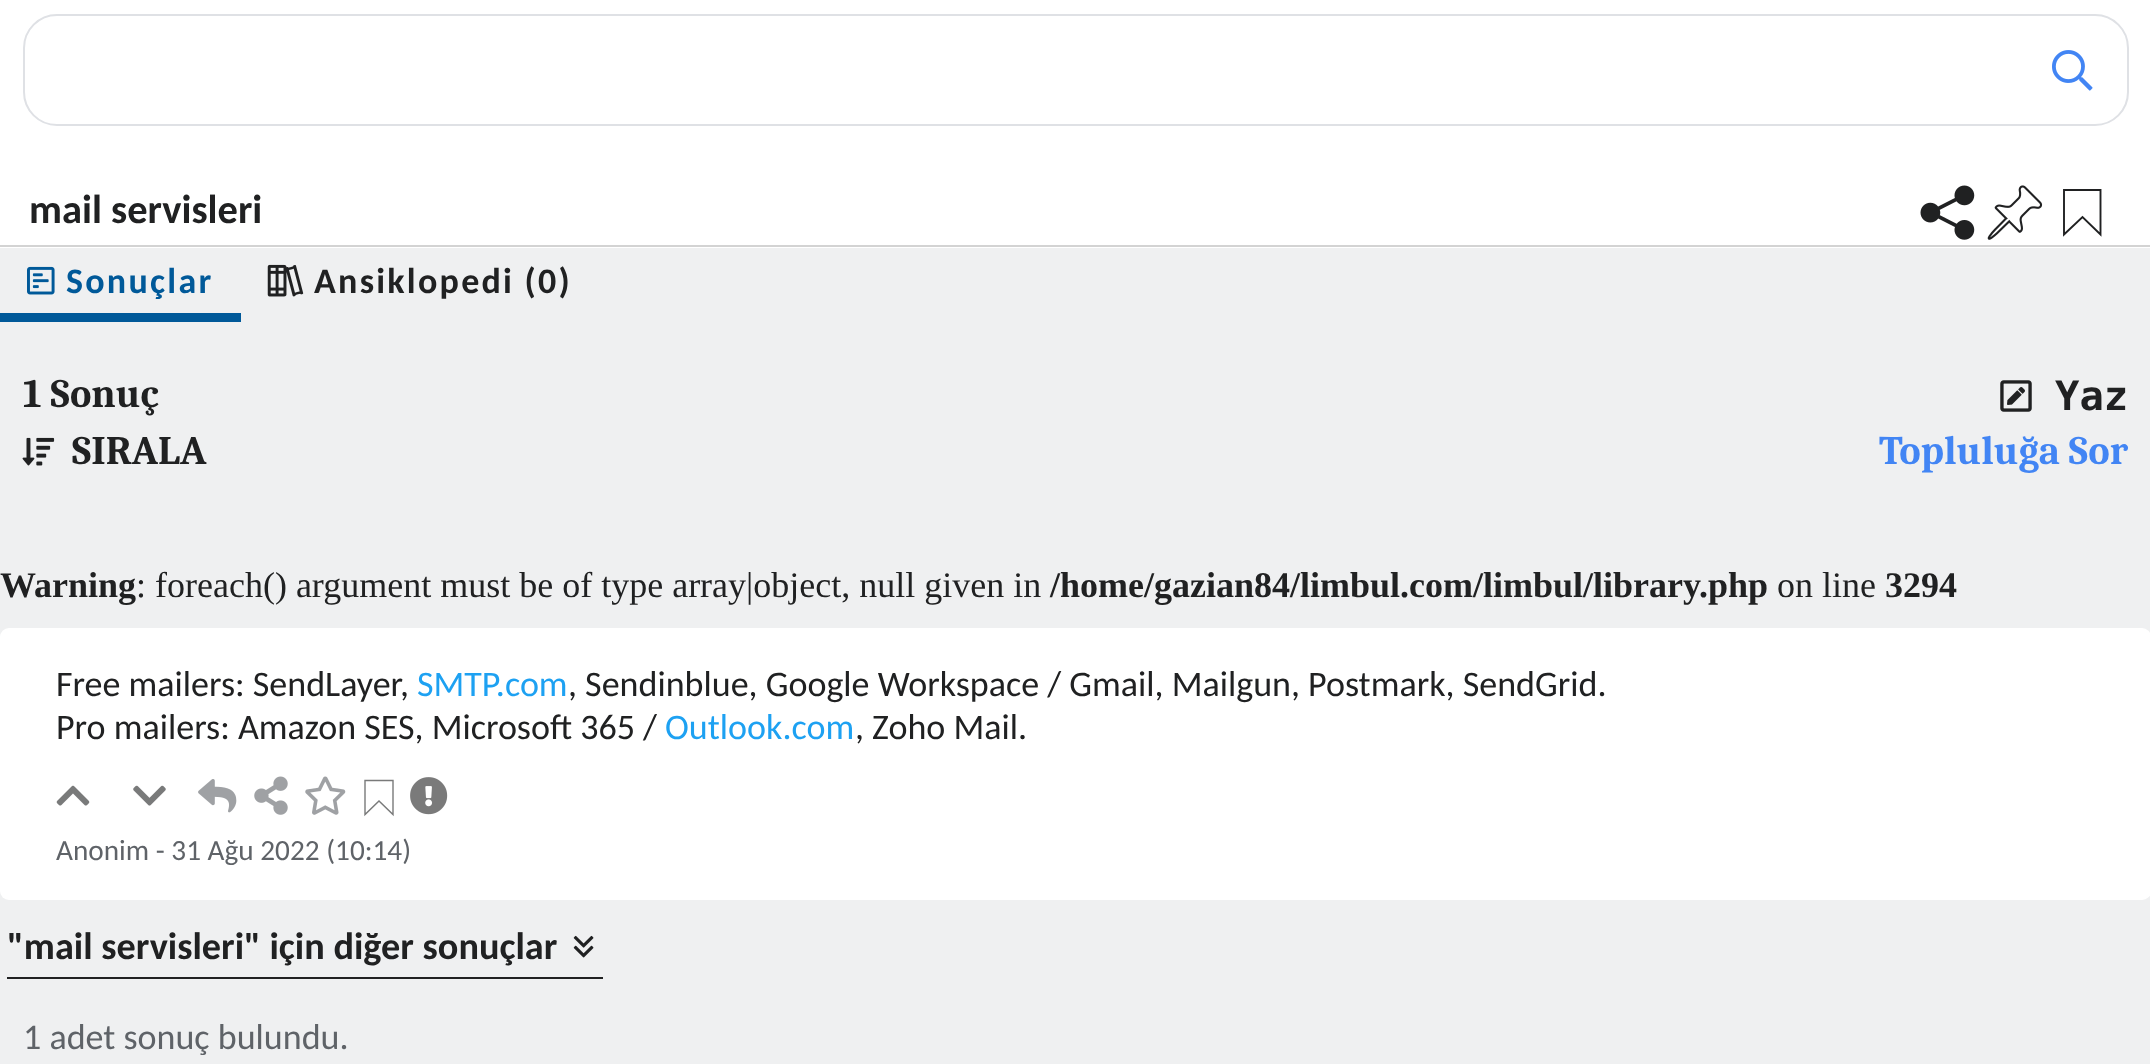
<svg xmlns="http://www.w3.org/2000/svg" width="2150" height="1064">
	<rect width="100%" height="100%" fill="#EFF0F1" />
	<rect x="0" y="0" width="2150" height="248" fill="#FFFFFF" />
	<rect x="0" y="245" width="2150" height="2" fill="#D3D3D3" />
	<rect x="24" y="15" width="2104" height="110" rx="33" fill="none" stroke="#DFE1E5" stroke-width="2" />
	<image x="2052" y="50" width="41" height="41" href="assets/img1.png" />
	<text x="29" y="223" font-family="Carlito" font-size="40.5" font-weight="700" fill="#202122">mail servisleri</text>
	<image x="1920" y="185" width="55" height="55" href="assets/img2.png" />
	<image x="1987" y="185" width="56" height="55" href="assets/img3.png" />
	<path d="M2064 190V234.5L2082.5 217L2100.5 234.5V190Z" fill="none" stroke="#202122" stroke-width="1.9" />
	<rect x="0" y="313" width="241" height="9" fill="#005999" />
	<image x="27" y="266" width="28" height="29" href="assets/img4.png" />
	<text x="66" y="293" font-family="Carlito" font-size="36" font-weight="700" letter-spacing="2.25" fill="#005999">Sonuçlar</text>
	<image x="267" y="264" width="37" height="33" href="assets/img5.png" />
	<text x="314" y="293" font-family="Carlito" font-size="36" font-weight="700" letter-spacing="2.25" fill="#202122">Ansiklopedi (0)</text>
	<text x="23" y="407" font-family="Caladea" font-size="40.5" font-weight="700" fill="#202122">1 Sonuç</text>
	<image x="22" y="437" width="33" height="29" href="assets/img6.png" />
	<text x="72" y="464" font-family="Caladea" font-size="40.5" font-weight="700" fill="#202122">SIRALA</text>
	<image x="2000" y="380" width="32" height="32" href="assets/img7.png" />
	<text x="2055" y="410" font-family="DejaVu Sans Mono" font-size="40.5" font-weight="700" fill="#202122">Yaz</text>
	<text x="1879" y="464" font-family="Caladea" font-size="40.5" font-weight="700" fill="#4285F4">Topluluğa Sor</text>
	<text x="0" y="597" font-family="Liberation Serif" font-size="36" font-weight="700" fill="#202122">Warning</text>
	<text x="136" y="597" font-family="Liberation Serif" font-size="36" fill="#202122">: foreach() argument must be of type array|object, null given in</text>
	<text x="1050" y="597" font-family="Liberation Serif" font-size="36" font-weight="700" fill="#202122">/home/gazian84/limbul.com/limbul/library.php</text>
	<text x="1777" y="597" font-family="Liberation Serif" font-size="36" fill="#202122">on line</text>
	<text x="1885" y="597" font-family="Liberation Serif" font-size="36" font-weight="700" fill="#202122">3294</text>
	<rect x="0" y="628" width="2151" height="272" rx="9" fill="#FFFFFF" />
	<text x="56" y="696" font-family="Carlito" font-size="36" fill="#202122">Free mailers: SendLayer,</text>
	<text x="417" y="696" font-family="Carlito" font-size="36" fill="#1DA1F2">SMTP.com</text>
	<g font-family="Carlito" font-size="36" fill="#202122">
		<text x="568" y="696">, Sendinblue, Google Workspace / Gmail, Mailgun, Postmark, SendGrid.</text>
		<text x="56" y="739">Pro mailers: Amazon SES, Microsoft 365 /</text>
	</g>
	<text x="665" y="739" font-family="Carlito" font-size="36" fill="#1DA1F2">Outlook.com</text>
	<text x="855" y="739" font-family="Carlito" font-size="36" fill="#202122">, Zoho Mail.</text>
	<image x="56" y="785" width="34" height="21" href="assets/img8.png" />
	<image x="133" y="785" width="33" height="21" href="assets/img9.png" />
	<image x="198" y="779" width="39" height="34" href="assets/img10.png" />
	<image x="254" y="776" width="34" height="39" href="assets/img11.png" />
	<image x="305" y="776" width="41" height="39" href="assets/img12.png" />
	<path d="M365 780.5V814.5L379 801L393 814.5V780.5Z" fill="none" stroke="#797A7A" stroke-width="1.4" />
	<image x="410" y="777" width="38" height="38" href="assets/img13.png" />
	<text x="56" y="860" font-family="Carlito" font-size="29.25" fill="#5F6368">Anonim - 31 Ağu 2022 (10:14)</text>
	<rect x="7" y="977" width="596" height="2" fill="#202122" />
	<text x="7" y="959" font-family="Carlito" font-size="38.25" font-weight="700" fill="#202122">"mail servisleri" için diğer sonuçlar</text>
	<image x="573" y="935" width="21" height="23" href="assets/img14.png" />
	<text x="23" y="1049" font-family="Carlito" font-size="36" fill="#5F6368">1 adet sonuç bulundu.</text>
</svg>
